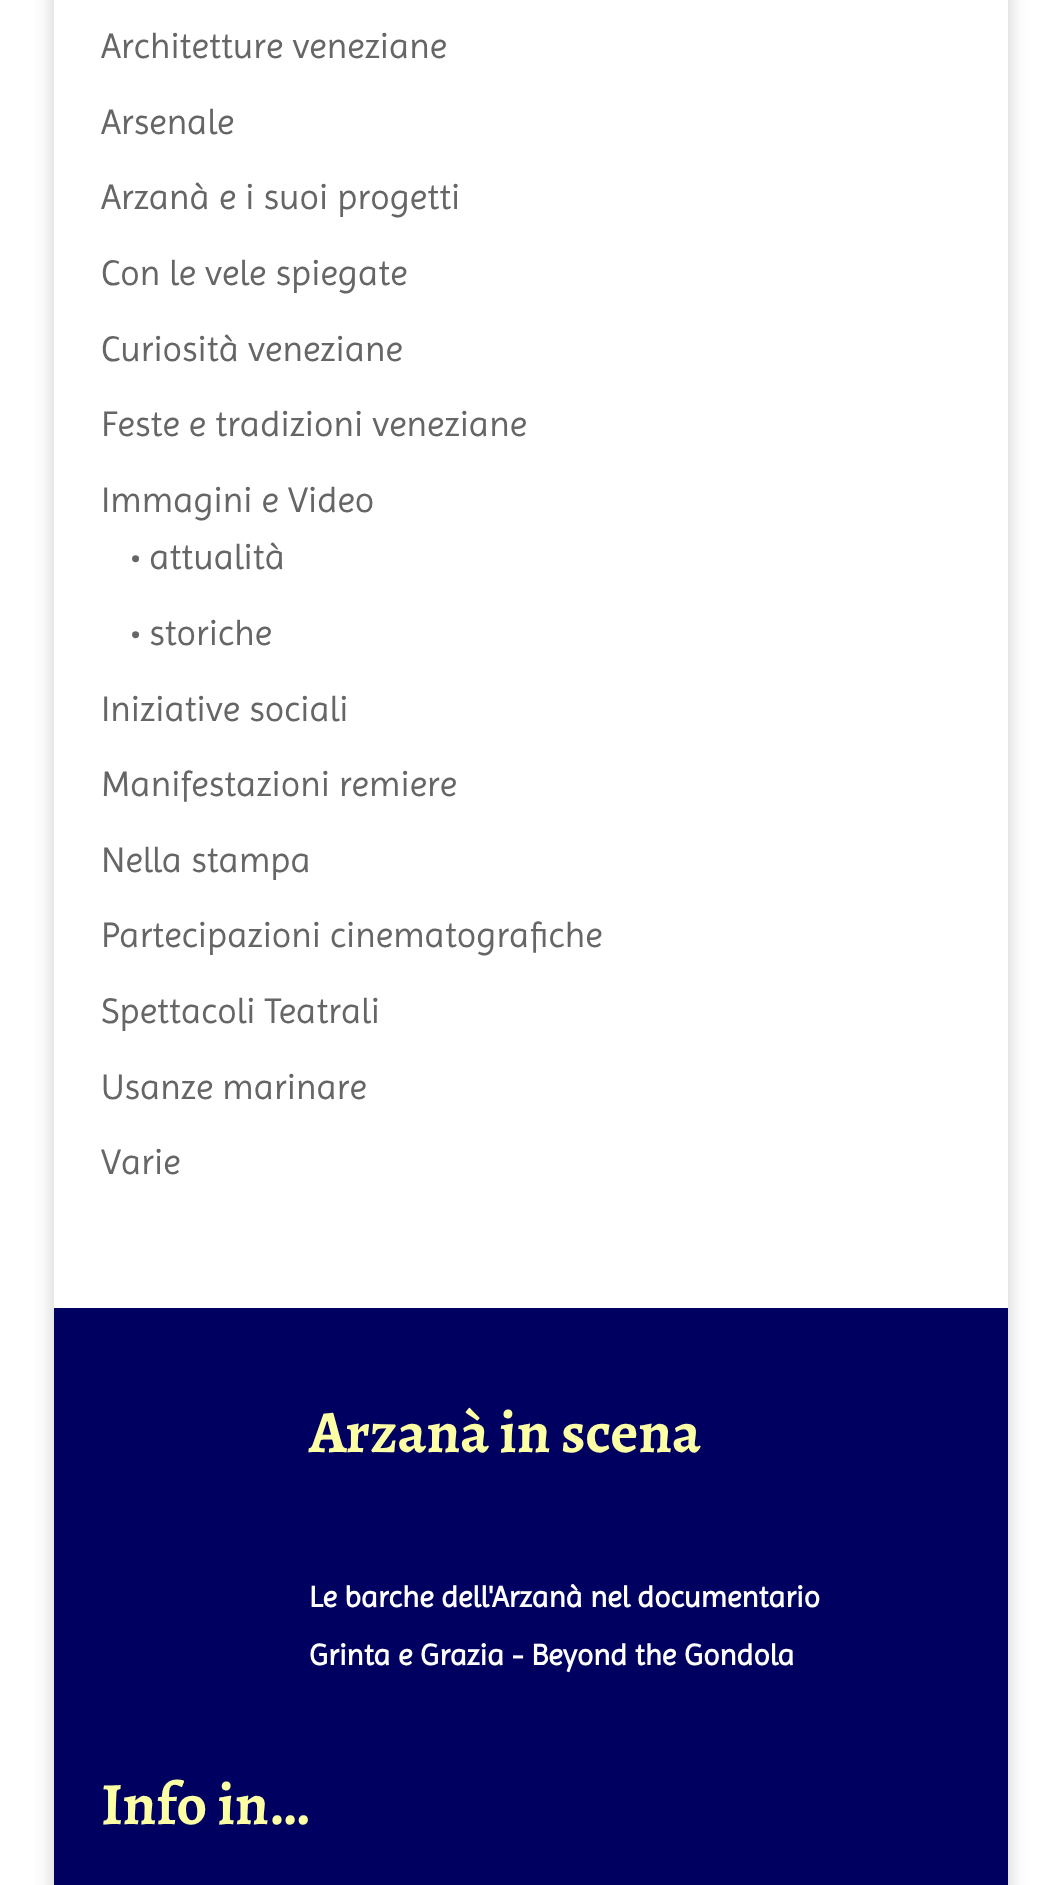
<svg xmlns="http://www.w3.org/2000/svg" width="1061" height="1885">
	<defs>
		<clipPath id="clip1"><path d="M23 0H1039V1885H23ZM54-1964H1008V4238H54Z" clip-rule="evenodd" /></clipPath>
	</defs>
	<rect width="100%" height="100%" fill="#FFFFFF" />
	<g clip-path="url(#clip1)">
		<rect x="54" y="-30" width="954" height="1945" fill="#000000" fill-opacity="0.2" filter="blur(10px)" />
	</g>
	<g font-family="Imprima" font-size="36" fill="#666666">
		<text x="101" y="58">Architetture veneziane</text>
		<text x="101" y="134">Arsenale</text>
		<text x="101" y="209">Arzanà e i suoi progetti</text>
		<text x="101" y="285">Con le vele spiegate</text>
		<text x="101" y="361">Curiosità veneziane</text>
		<text x="101" y="436">Feste e tradizioni veneziane</text>
		<text x="101" y="512">Immagini e Video</text>
		<text x="131" y="569">• attualità</text>
		<text x="131" y="645">• storiche</text>
		<text x="101" y="721">Iniziative sociali</text>
		<text x="101" y="796">Manifestazioni remiere</text>
		<text x="101" y="872">Nella stampa</text>
		<text x="101" y="947">Partecipazioni cinematografiche</text>
		<text x="101" y="1023">Spettacoli Teatrali</text>
		<text x="101" y="1099">Usanze marinare</text>
		<text x="101" y="1174">Varie</text>
	</g>
	<rect x="54" y="1308" width="954" height="577" fill="#000061" />
	<text x="309" y="1452" font-family="Alegreya" font-size="60" font-weight="700" fill="#FDFFA5">Arzanà in scena</text>
	<g font-family="Imprima" font-size="30" font-weight="700" fill="#FFFFFF">
		<text x="309" y="1607">Le barche dell'Arzanà nel documentario</text>
		<text x="309" y="1665">Grinta e Grazia - Beyond the Gondola</text>
	</g>
	<text x="101" y="1824" font-family="Alegreya" font-size="60" font-weight="700" fill="#FDFFA5">Info in…</text>
</svg>
